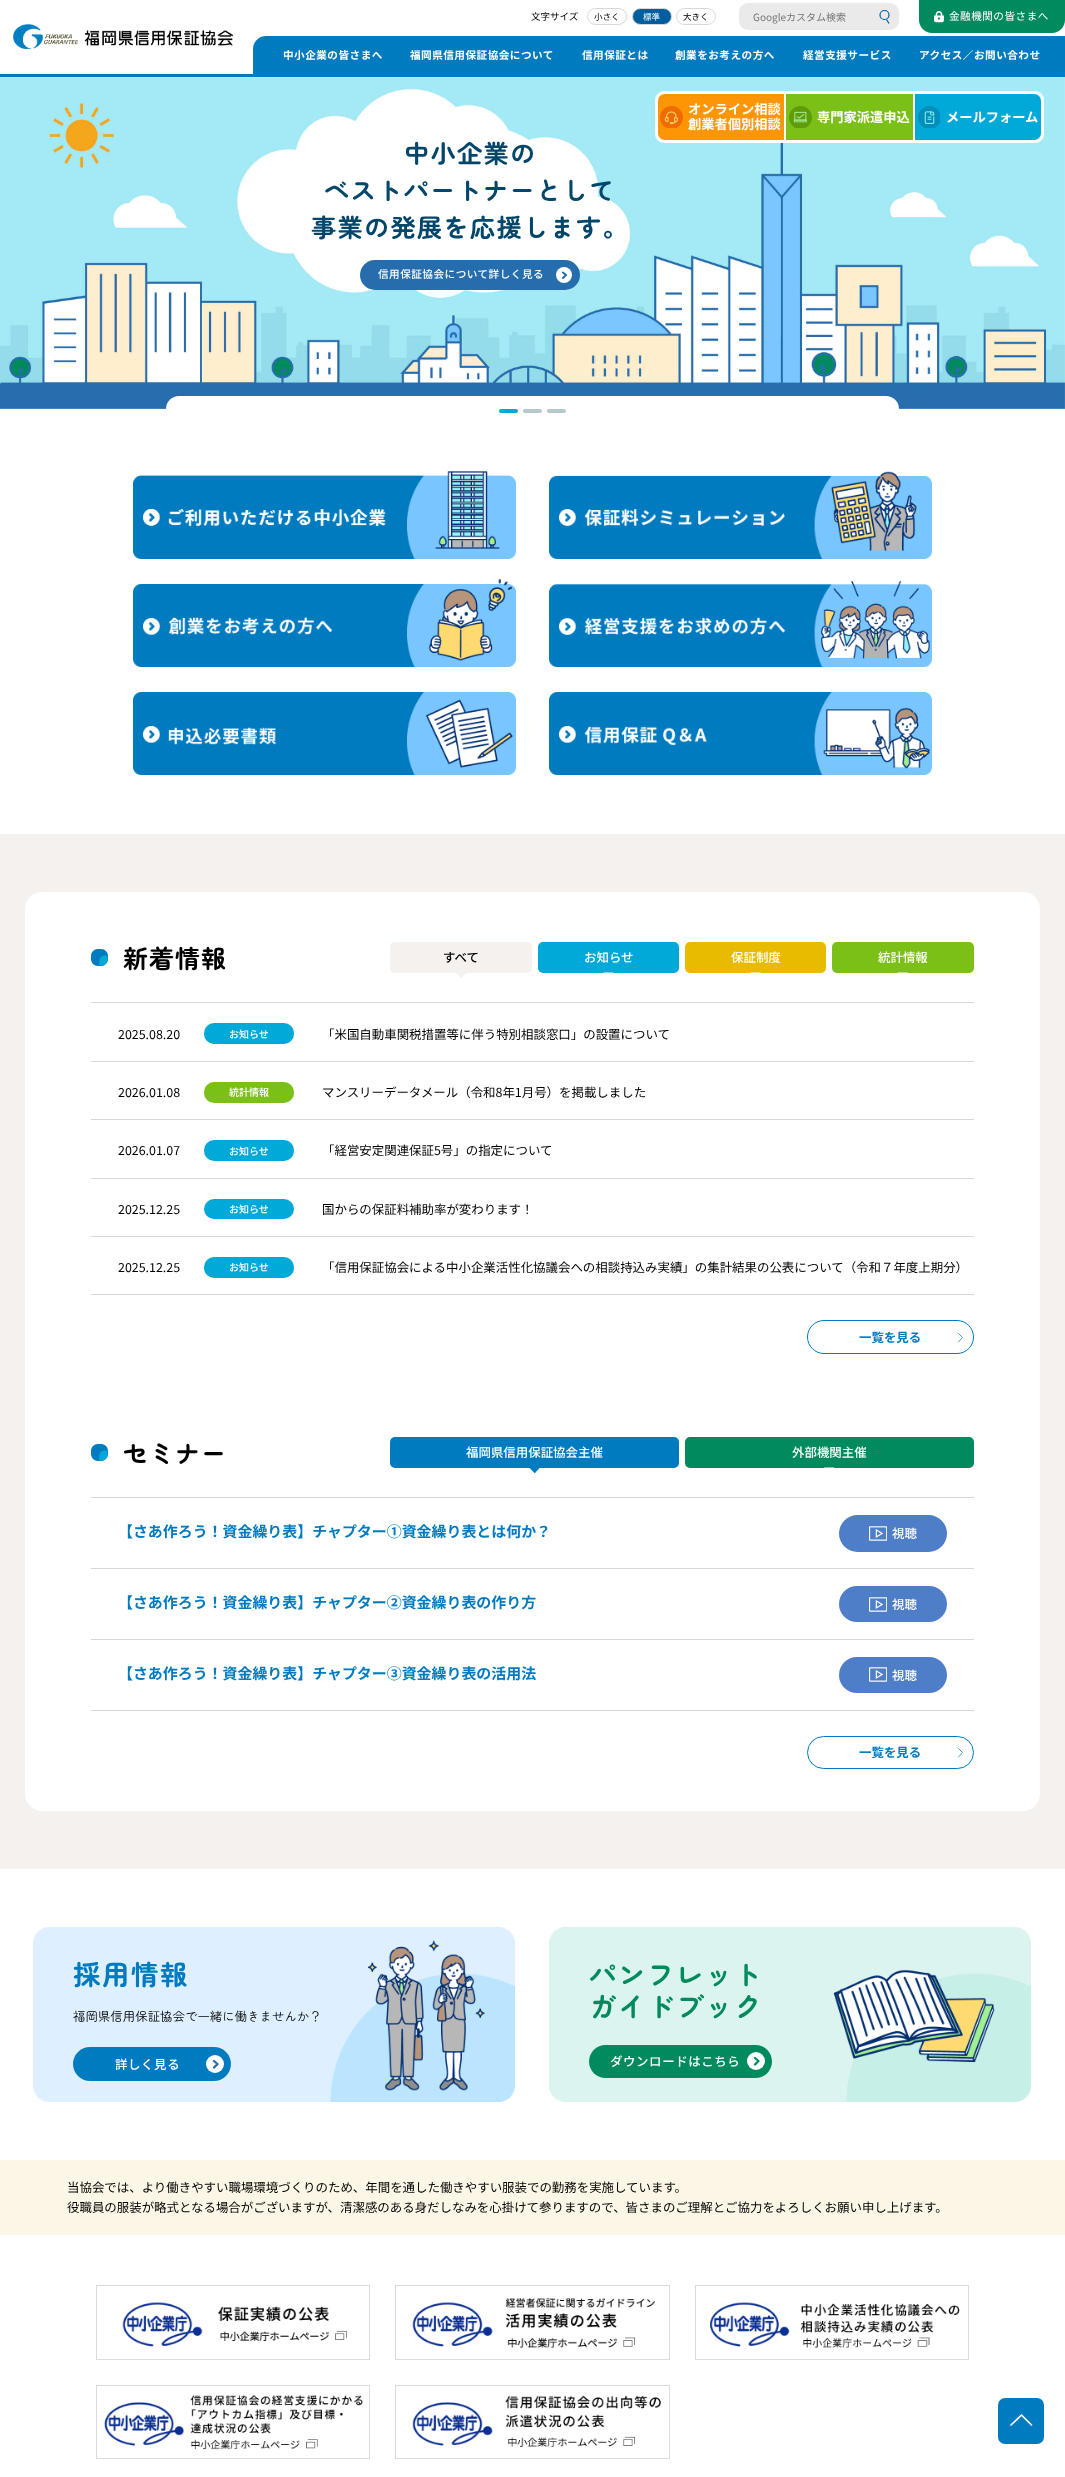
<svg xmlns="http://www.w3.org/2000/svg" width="1065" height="2477">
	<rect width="100%" height="100%" fill="#FFFFFF" />
	<rect x="0" y="74" width="1065" height="3" fill="#007BBF" />
	<image x="13" y="24" width="220" height="25" href="assets/img1.png" />
	<text x="531" y="20" font-family="Noto Sans JP" font-size="9.5" fill="#000000">文字サイズ</text>
	<rect x="587.5" y="8.5" width="39" height="16" rx="8" fill="none" stroke="#D8D8D8" />
	<text x="594" y="20" font-family="Noto Sans JP" font-size="8.5" fill="#000000">小さく</text>
	<rect x="632.5" y="8.5" width="39" height="16" rx="8" fill="#005E9E" stroke="#D8D8D8" />
	<text x="643" y="20" font-family="Noto Sans JP" font-size="8.5" fill="#FFFFFF">標準</text>
	<rect x="676.5" y="8.5" width="39" height="16" rx="8" fill="none" stroke="#D8D8D8" />
	<text x="683" y="20" font-family="Noto Sans JP" font-size="8.5" fill="#000000">大きく</text>
	<rect x="739" y="3" width="160" height="27" rx="9" fill="#EAEAEA" />
	<text x="753" y="21" font-family="Noto Sans JP" font-size="10" fill="#757575">Googleカスタム検索</text>
	<circle cx="884.5" cy="15" r="4.5" fill="none" stroke="#005E9E" stroke-width="1.2" />
	<path d="M886.5 19.5L889 23.5" fill="none" stroke="#005E9E" stroke-width="1.2" />
	<path d="M919 0H1065V20C1065 27 1059 33 1052 33H932C925 33 919 27 919 20Z" fill="#008A5D" />
	<image x="934" y="11" width="10" height="12" href="assets/img2.png" />
	<text x="949" y="20" font-family="Noto Sans JP" font-size="10.6" letter-spacing="0.5" fill="#FFFFFF">金融機関の皆さまへ</text>
	<path d="M266 36H1065V74H253V49C253 42 259 36 266 36Z" fill="#007BBF" />
	<g font-family="Noto Sans JP" font-size="10.6" font-weight="700" letter-spacing="0.5" fill="#FFFFFF">
		<text x="283" y="59">中小企業の皆さまへ</text>
		<text x="410" y="59">福岡県信用保証協会について</text>
		<text x="582" y="59">信用保証とは</text>
		<text x="675" y="59">創業をお考えの方へ</text>
		<text x="803" y="59">経営支援サービス</text>
		<text x="919" y="59">アクセス／お問い合わせ</text>
	</g>
	<image x="0" y="77" width="1065" height="332" href="assets/img6.png" />
	<rect x="655" y="91" width="389" height="52" rx="9" fill="#FFFFFF" />
	<path d="M665 94H784V140H665C661 140 658 137 658 133V101C658 97 661 94 665 94Z" fill="#FE9505" />
	<image x="660" y="106" width="23" height="22" href="assets/img3.png" />
	<g font-family="Noto Sans JP" font-size="13.25" font-weight="700" fill="#FFFFFF">
		<text x="688" y="114">オンライン相談</text>
		<text x="688" y="129">創業者個別相談</text>
	</g>
	<rect x="786" y="94" width="127" height="46" fill="#7BC017" />
	<image x="789" y="106" width="23" height="22" href="assets/img4.png" />
	<text x="817" y="122" font-family="Noto Sans JP" font-size="13.25" font-weight="700" fill="#FFFFFF">専門家派遣申込</text>
	<path d="M915 94H1034C1038 94 1041 97 1041 101V133C1041 137 1038 140 1034 140H915Z" fill="#00A9D7" />
	<image x="918" y="106" width="22" height="22" href="assets/img5.png" />
	<text x="946" y="122" font-family="Noto Sans JP" font-size="13.25" font-weight="700" fill="#FFFFFF">メールフォーム</text>
	<g font-family="Zen Maru Gothic" font-size="25.25" font-weight="700" letter-spacing="1.25" fill="#03466B">
		<text x="404" y="163">中小企業の</text>
		<text x="324" y="200">ベストパートナーとして</text>
		<text x="311" y="237">事業の発展を応援します。</text>
	</g>
	<rect x="360" y="260" width="220" height="30" rx="15" fill="#256DAD" />
	<text x="378" y="278" font-family="Noto Sans JP" font-size="10.6" font-weight="500" letter-spacing="0.5" fill="#FFFFFF">信用保証協会について詳しく見る</text>
	<circle cx="564" cy="275" r="8" fill="#FFFFFF" />
	<path d="M563 272.5L566 275L563 278" fill="none" stroke="#256DAD" stroke-width="2" stroke-linecap="round" stroke-linejoin="round" />
	<rect x="166" y="396" width="733" height="33" rx="13" fill="#FFFFFF" />
	<rect x="499" y="409" width="19" height="4" rx="2" fill="#00A9D7" />
	<rect x="523" y="409" width="19" height="4" rx="2" fill="#B4C8CB" />
	<rect x="547" y="409" width="19" height="4" rx="2" fill="#B4C8CB" />
	<image x="133" y="471" width="383" height="88" href="assets/img7.png" />
	<image x="549" y="471" width="383" height="88" href="assets/img8.png" />
	<image x="133" y="579" width="383" height="88" href="assets/img9.png" />
	<image x="549" y="581" width="383" height="86" href="assets/img10.png" />
	<image x="133" y="692" width="383" height="83" href="assets/img11.png" />
	<image x="549" y="692" width="383" height="83" href="assets/img12.png" />
	<rect x="0" y="834" width="1065" height="1035" fill="#F4F1EF" />
	<rect x="25" y="892" width="1015" height="919" rx="17" fill="#FFFFFF" />
	<image x="91" y="949" width="17" height="17" href="assets/img13.png" />
	<text x="123" y="968" font-family="Zen Maru Gothic" font-size="25" font-weight="700" letter-spacing="1" fill="#000000">新着情報</text>
	<rect x="390" y="942" width="142" height="31" rx="5" fill="#F4F1EF" />
	<text x="443" y="962" font-family="Noto Sans JP" font-size="12.45" font-weight="500" fill="#000000">すべて</text>
	<path d="M456 973V972.5H466V973L461.5 978H461Z" fill="#F4F1EF" />
	<rect x="538" y="942" width="141" height="31" rx="5" fill="#00A9D7" />
	<text x="584" y="962" font-family="Noto Sans JP" font-size="12.45" font-weight="500" fill="#FFFFFF">お知らせ</text>
	<path d="M603 972.5H613.5L608.5 978H608Z" fill="#FFFFFF" />
	<rect x="685" y="942" width="141" height="31" rx="5" fill="#E8BB00" />
	<text x="731" y="962" font-family="Noto Sans JP" font-size="12.45" font-weight="500" fill="#FFFFFF">保証制度</text>
	<path d="M756 978H755.5L750 972.5H761Z" fill="#FFFFFF" />
	<rect x="832" y="942" width="142" height="31" rx="5" fill="#7BC017" />
	<text x="878" y="962" font-family="Noto Sans JP" font-size="12.45" font-weight="500" fill="#FFFFFF">統計情報</text>
	<path d="M903 978H902.5L897.5 972.5H908Z" fill="#FFFFFF" />
	<rect x="91" y="1002" width="883" height="1" fill="#D8D8D8" />
	<rect x="91" y="1061" width="883" height="1" fill="#D8D8D8" />
	<text x="118" y="1039" font-family="Noto Sans JP" font-size="12.45" fill="#000000">2025.08.20</text>
	<rect x="204" y="1023" width="90" height="21" rx="10" fill="#00A9D7" />
	<text x="229" y="1038" font-family="Noto Sans JP" font-size="10" font-weight="500" fill="#FFFFFF">お知らせ</text>
	<text x="322" y="1039" font-family="Noto Sans JP" font-size="12.45" fill="#000000">「米国自動車関税措置等に伴う特別相談窓口」の設置について</text>
	<rect x="91" y="1119" width="883" height="1" fill="#D8D8D8" />
	<text x="118" y="1097" font-family="Noto Sans JP" font-size="12.45" fill="#000000">2026.01.08</text>
	<rect x="204" y="1082" width="90" height="21" rx="10" fill="#7BC017" />
	<text x="229" y="1096" font-family="Noto Sans JP" font-size="10" font-weight="500" fill="#FFFFFF">統計情報</text>
	<text x="322" y="1097" font-family="Noto Sans JP" font-size="12.45" fill="#000000">マンスリーデータメール（令和8年1月号）を掲載しました</text>
	<rect x="91" y="1178" width="883" height="1" fill="#D8D8D8" />
	<text x="118" y="1155" font-family="Noto Sans JP" font-size="12.45" fill="#000000">2026.01.07</text>
	<rect x="204" y="1140" width="90" height="21" rx="10" fill="#00A9D7" />
	<text x="229" y="1155" font-family="Noto Sans JP" font-size="10" font-weight="500" fill="#FFFFFF">お知らせ</text>
	<text x="322" y="1155" font-family="Noto Sans JP" font-size="12.45" fill="#000000">「経営安定関連保証5号」の指定について</text>
	<rect x="91" y="1236" width="883" height="1" fill="#D8D8D8" />
	<text x="118" y="1214" font-family="Noto Sans JP" font-size="12.45" fill="#000000">2025.12.25</text>
	<rect x="204" y="1199" width="90" height="20" rx="10" fill="#00A9D7" />
	<text x="229" y="1213" font-family="Noto Sans JP" font-size="10" font-weight="500" fill="#FFFFFF">お知らせ</text>
	<text x="322" y="1214" font-family="Noto Sans JP" font-size="12.45" fill="#000000">国からの保証料補助率が変わります！</text>
	<rect x="91" y="1294" width="883" height="1" fill="#D8D8D8" />
	<text x="118" y="1272" font-family="Noto Sans JP" font-size="12.45" fill="#000000">2025.12.25</text>
	<rect x="204" y="1257" width="90" height="21" rx="10" fill="#00A9D7" />
	<text x="229" y="1271" font-family="Noto Sans JP" font-size="10" font-weight="500" fill="#FFFFFF">お知らせ</text>
	<text x="322" y="1272" font-family="Noto Sans JP" font-size="12.45" fill="#000000">「信用保証協会による中小企業活性化協議会への相談持込み実績」の集計結果の公表について（令和７年度上期分）</text>
	<rect x="807.5" y="1320.5" width="166" height="33" rx="16.5" fill="none" stroke="#007BBF" />
	<text x="859" y="1342" font-family="Noto Sans JP" font-size="12.45" font-weight="700" fill="#007BBF">一覧を見る</text>
	<path d="M958.5 1333.5L962.5 1337.5L958.5 1342" fill="none" stroke="#007BBF" stroke-width="0.7" stroke-linecap="round" stroke-linejoin="round" />
	<image x="91" y="1444" width="17" height="17" href="assets/img13.png" />
	<text x="123" y="1463" font-family="Zen Maru Gothic" font-size="25" font-weight="700" letter-spacing="1" fill="#000000">セミナー</text>
	<rect x="390" y="1437" width="289" height="31" rx="5" fill="#007BBF" />
	<text x="466" y="1457" font-family="Noto Sans JP" font-size="12.45" font-weight="500" fill="#FFFFFF">福岡県信用保証協会主催</text>
	<path d="M535 1473H534.5L529 1467.5H540Z" fill="#007BBF" />
	<rect x="685" y="1437" width="289" height="31" rx="5" fill="#008A5D" />
	<text x="792" y="1457" font-family="Noto Sans JP" font-size="12.45" font-weight="500" fill="#FFFFFF">外部機関主催</text>
	<path d="M824 1467.5H834.5L829.5 1473H829Z" fill="#FFFFFF" />
	<rect x="91" y="1497" width="883" height="1" fill="#D8D8D8" />
	<rect x="91" y="1568" width="883" height="1" fill="#D8D8D8" />
	<text x="118" y="1537" font-family="Noto Sans JP" font-size="14.95" font-weight="700" fill="#007BBF">【さあ作ろう！資金繰り表】チャプター①資金繰り表とは何か？</text>
	<rect x="839" y="1515" width="108" height="37" rx="18.5" fill="#4F7EC9" />
	<image x="869" y="1526" width="18" height="15" href="assets/img14.png" />
	<text x="892" y="1538" font-family="Noto Sans JP" font-size="12.45" font-weight="500" fill="#FFFFFF">視聴</text>
	<rect x="91" y="1639" width="883" height="1" fill="#D8D8D8" />
	<text x="118" y="1608" font-family="Noto Sans JP" font-size="14.95" font-weight="700" fill="#007BBF">【さあ作ろう！資金繰り表】チャプター②資金繰り表の作り方</text>
	<rect x="839" y="1586" width="108" height="36" rx="18" fill="#4F7EC9" />
	<image x="869" y="1597" width="18" height="15" href="assets/img14.png" />
	<text x="892" y="1609" font-family="Noto Sans JP" font-size="12.45" font-weight="500" fill="#FFFFFF">視聴</text>
	<rect x="91" y="1710" width="883" height="1" fill="#D8D8D8" />
	<text x="118" y="1679" font-family="Noto Sans JP" font-size="14.95" font-weight="700" fill="#007BBF">【さあ作ろう！資金繰り表】チャプター③資金繰り表の活用法</text>
	<rect x="839" y="1657" width="108" height="36" rx="18" fill="#4F7EC9" />
	<image x="869" y="1667" width="18" height="15" href="assets/img14.png" />
	<text x="892" y="1680" font-family="Noto Sans JP" font-size="12.45" font-weight="500" fill="#FFFFFF">視聴</text>
	<rect x="807.5" y="1736.5" width="166" height="32" rx="16" fill="none" stroke="#007BBF" />
	<text x="859" y="1757" font-family="Noto Sans JP" font-size="12.45" font-weight="700" fill="#007BBF">一覧を見る</text>
	<path d="M958.5 1748.5L962.5 1752.5L958.5 1757" fill="none" stroke="#007BBF" stroke-width="0.7" stroke-linecap="round" stroke-linejoin="round" />
	<image x="33" y="1927" width="482" height="175" href="assets/img15.png" />
	<text x="73" y="1985" font-family="Zen Maru Gothic" font-size="27.5" font-weight="700" letter-spacing="1.5" fill="#007BBF">採用情報</text>
	<text x="73" y="2021" font-family="Zen Maru Gothic" font-size="12.45" fill="#000000">福岡県信用保証協会で一緒に働きませんか？</text>
	<rect x="73" y="2047" width="158" height="34" rx="17" fill="#007BBF" />
	<text x="115" y="2069" font-family="Noto Sans JP" font-size="12.45" font-weight="500" letter-spacing="0.6" fill="#FFFFFF">詳しく見る</text>
	<circle cx="215" cy="2064" r="9" fill="#FFFFFF" />
	<path d="M214 2061L217.5 2064L214 2067.5" fill="none" stroke="#256DAD" stroke-width="2.3" stroke-linecap="round" stroke-linejoin="round" />
	<image x="549" y="1927" width="482" height="175" href="assets/img16.png" />
	<g font-family="Zen Maru Gothic" font-size="27.5" font-weight="700" letter-spacing="1.5" fill="#008A5D">
		<text x="589" y="1985">パンフレット</text>
		<text x="589" y="2017">ガイドブック</text>
	</g>
	<rect x="589" y="2045" width="183" height="33" rx="16.5" fill="#008A5D" />
	<text x="610" y="2066" font-family="Noto Sans JP" font-size="12.45" font-weight="500" letter-spacing="0.6" fill="#FFFFFF">ダウンロードはこちら</text>
	<circle cx="756" cy="2061" r="9" fill="#FFFFFF" />
	<path d="M755 2058L758.5 2061L755 2064.5" fill="none" stroke="#008A5D" stroke-width="2.3" stroke-linecap="round" stroke-linejoin="round" />
	<rect x="0" y="2160" width="1065" height="75" fill="#FCF6E6" />
	<g font-family="Noto Sans JP" font-size="12.45" fill="#000000">
		<text x="67" y="2192">当協会では、より働きやすい職場環境づくりのため、年間を通した働きやすい服装での勤務を実施しています。</text>
		<text x="67" y="2212">役職員の服装が略式となる場合がございますが、清潔感のある身だしなみを心掛けて参りますので、皆さまのご理解とご協力をよろしくお願い申し上げます。</text>
	</g>
	<image x="96" y="2285" width="274" height="75" href="assets/img17.png" />
	<image x="395" y="2285" width="275" height="75" href="assets/img18.png" />
	<image x="695" y="2285" width="274" height="75" href="assets/img19.png" />
	<image x="96" y="2385" width="274" height="74" href="assets/img20.png" />
	<image x="395" y="2385" width="275" height="74" href="assets/img21.png" />
	<rect x="998" y="2398" width="46" height="46" rx="7" fill="#007BBF" />
	<path d="M1011 2425L1021.5 2415L1031.5 2425" fill="none" stroke="#FFFFFF" stroke-width="1.7" stroke-linecap="round" stroke-linejoin="round" />
</svg>
